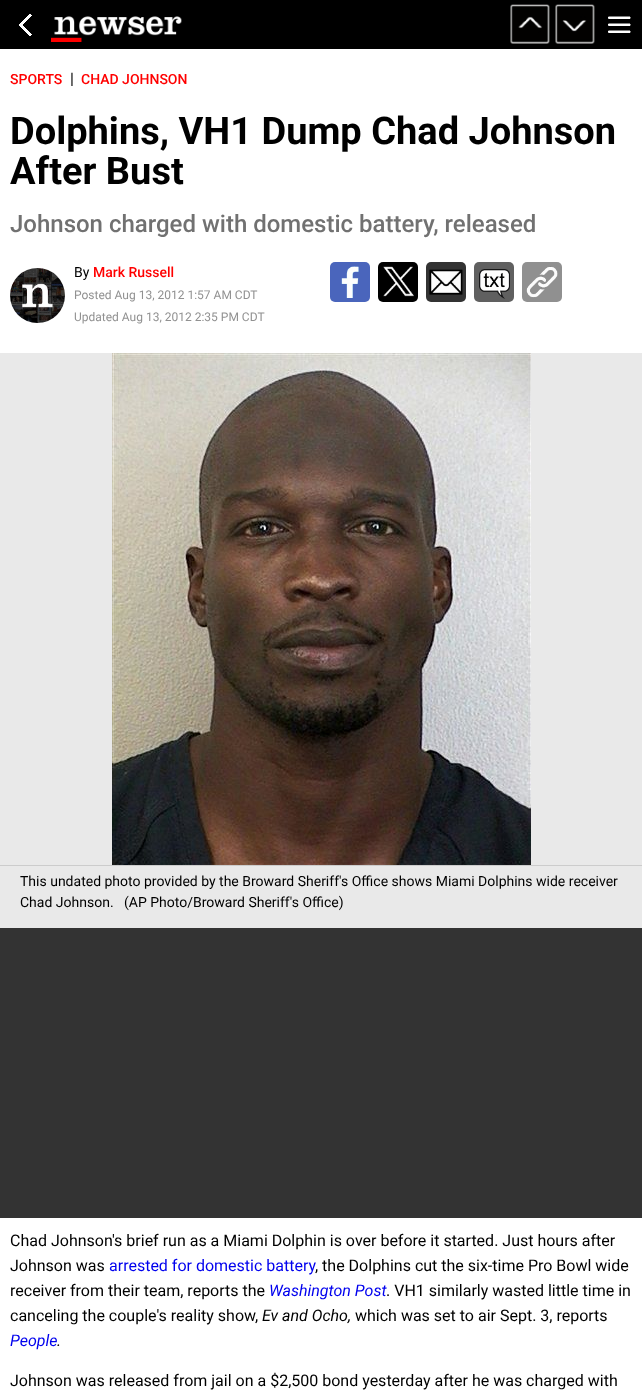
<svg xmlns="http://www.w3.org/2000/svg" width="642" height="1400">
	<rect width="100%" height="100%" fill="#FFFFFF" />
	<rect x="0" y="0" width="642" height="49" fill="#000000" />
	<image x="19" y="14" width="13" height="22" href="assets/img1.png" />
	<image x="51" y="16" width="131" height="26" href="assets/img2.png" />
	<image x="510" y="4" width="40" height="40" href="assets/img3.png" />
	<image x="555" y="4" width="40" height="40" href="assets/img4.png" />
	<image x="608" y="16" width="23" height="17" href="assets/img5.png" />
	<text x="10" y="84" font-family="Roboto" font-size="14" font-weight="500" fill="#FF0000">SPORTS</text>
	<text x="70" y="84" font-family="Roboto" font-size="16" fill="#000000">|</text>
	<text x="81" y="84" font-family="Roboto" font-size="14" font-weight="500" fill="#FF0000">CHAD JOHNSON</text>
	<g font-family="Roboto" font-size="38" font-weight="700" fill="#000000">
		<text x="10" y="144">Dolphins, VH1 Dump Chad Johnson</text>
		<text x="10" y="184">After Bust</text>
	</g>
	<text x="10" y="232" font-family="Roboto" font-size="24" font-weight="500" fill="#717171">Johnson charged with domestic battery, released</text>
	<image x="10" y="268" width="55" height="55" href="assets/img6.png" />
	<text x="74" y="277" font-family="Roboto" font-size="14" fill="#000000">By</text>
	<text x="93" y="277" font-family="Roboto" font-size="14" font-weight="500" fill="#FF0000">Mark Russell</text>
	<g font-family="Roboto" font-size="12" fill="#919191">
		<text x="74" y="299">Posted Aug 13, 2012 1:57 AM CDT</text>
		<text x="74" y="321">Updated Aug 13, 2012 2:35 PM CDT</text>
	</g>
	<rect x="330" y="262" width="40" height="40" rx="5" fill="#4A65BC" />
	<image x="341" y="266" width="18" height="32" href="assets/img7.png" />
	<rect x="378" y="262" width="40" height="40" rx="5" fill="#000000" />
	<image x="383" y="266" width="31" height="31" href="assets/img8.png" />
	<rect x="426" y="262" width="40" height="40" rx="5" fill="#333333" />
	<image x="429" y="269" width="34" height="26" href="assets/img9.png" />
	<rect x="474" y="262" width="40" height="40" rx="5" fill="#606060" />
	<image x="479" y="269" width="31" height="30" href="assets/img10.png" />
	<rect x="522" y="262" width="40" height="40" rx="5" fill="#909090" />
	<image x="526" y="266" width="32" height="32" href="assets/img11.png" />
	<rect x="0" y="353" width="642" height="575" fill="#E9E9E9" />
	<rect x="0" y="865" width="642" height="1" fill="#CCCCCC" />
	<image x="112" y="353" width="419" height="512" href="assets/img12.png" />
	<g font-family="Roboto" font-size="14" fill="#000000">
		<text x="20" y="886">This undated photo provided by the Broward Sheriff's Office shows Miami Dolphins wide receiver</text>
		<text x="20" y="907" xml:space="preserve">Chad Johnson.   (AP Photo/Broward Sheriff's Office)</text>
	</g>
	<rect x="0" y="928" width="642" height="290" fill="#333333" />
	<g font-family="Roboto" font-size="16" fill="#000000">
		<text x="10" y="1246">Chad Johnson's brief run as a Miami Dolphin is over before it started. Just hours after</text>
		<text x="10" y="1271">Johnson was</text>
	</g>
	<text x="109" y="1271" font-family="Roboto" font-size="16" fill="#0000EE">arrested for domestic battery</text>
	<g font-family="Roboto" font-size="16" fill="#000000">
		<text x="315" y="1271">, the Dolphins cut the six-time Pro Bowl wide</text>
		<text x="10" y="1296">receiver from their team, reports the</text>
	</g>
	<text x="269" y="1296" font-family="Roboto" font-size="16" font-style="italic" fill="#0000EE">Washington Post</text>
	<g font-family="Roboto" font-size="16" fill="#000000">
		<text x="386" y="1296">. VH1 similarly wasted little time in</text>
		<text x="10" y="1321">canceling the couple's reality show,</text>
	</g>
	<text x="262" y="1321" font-family="Roboto" font-size="16" font-style="italic" fill="#000000">Ev and Ocho,</text>
	<text x="355" y="1321" font-family="Roboto" font-size="16" fill="#000000">which was set to air Sept. 3, reports</text>
	<text x="10" y="1346" font-family="Roboto" font-size="16" font-style="italic" fill="#0000EE">People</text>
	<text x="57" y="1346" font-family="Roboto" font-size="16" font-style="italic" fill="#000000">.</text>
	<text x="10" y="1386" font-family="Roboto" font-size="16" fill="#000000">Johnson was released from jail on a $2,500 bond yesterday after he was charged with</text>
</svg>
